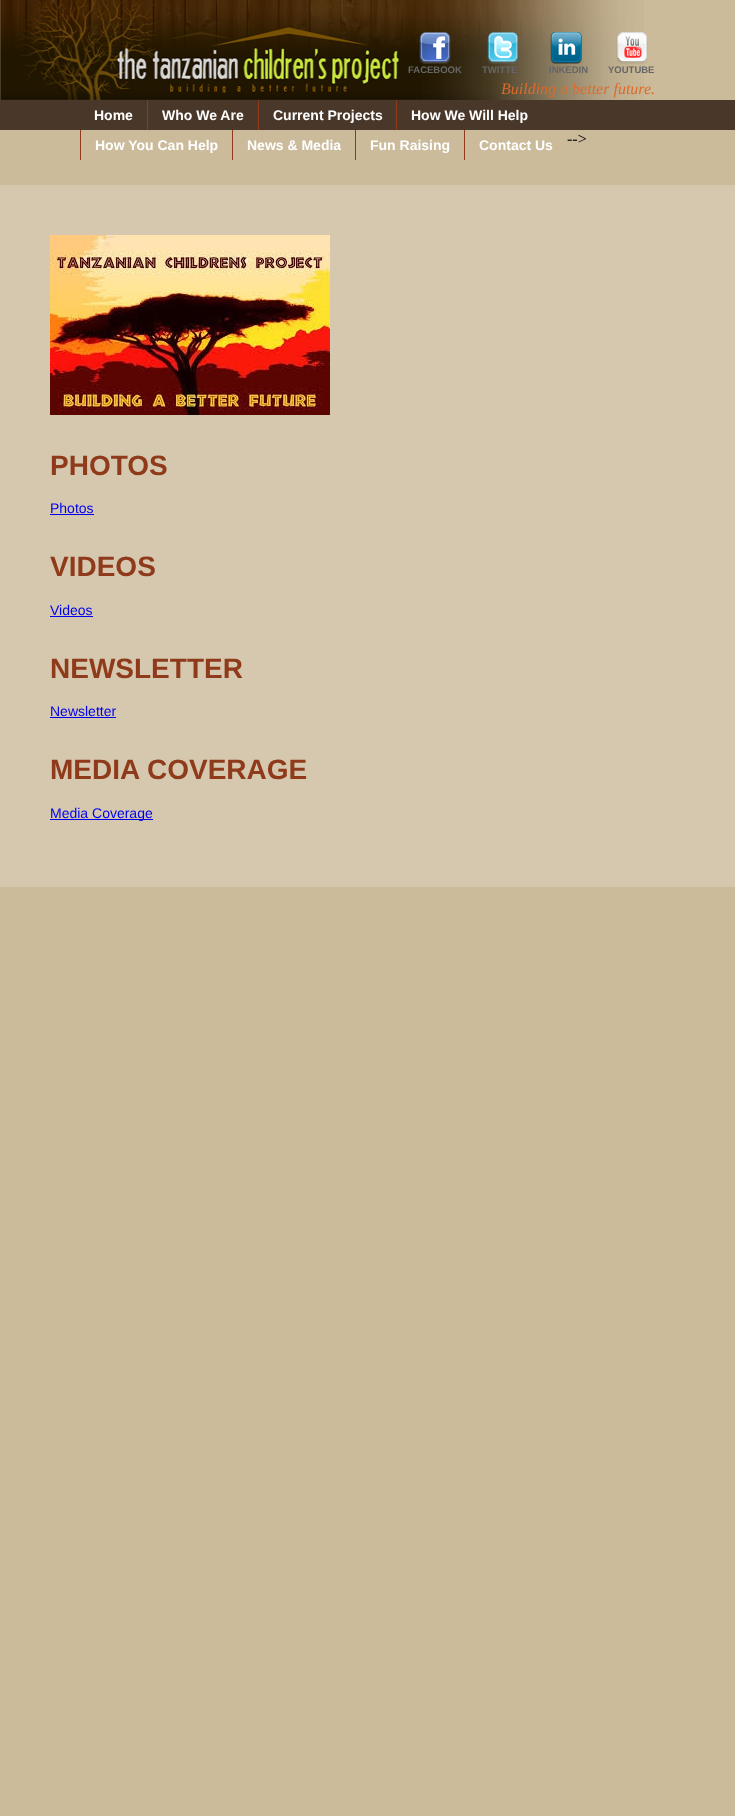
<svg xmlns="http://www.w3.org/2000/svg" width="735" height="1816">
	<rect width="100%" height="100%" fill="#CBBB9B" />
	<image x="0" y="0" width="644" height="100" href="assets/img1.png" />
	<image x="419" y="32" width="32" height="32" href="assets/img2.png" />
	<text x="408" y="73" font-family="Liberation Sans" font-size="9.5" font-weight="700" fill="#666666">FACEBOOK</text>
	<image x="487" y="32" width="32" height="32" href="assets/img3.png" />
	<text x="482" y="73" font-family="Liberation Sans" font-size="9.5" font-weight="700" fill="#666666">TWITTE</text>
	<image x="550" y="32" width="32" height="32" href="assets/img4.png" />
	<text x="549" y="73" font-family="Liberation Sans" font-size="9.5" font-weight="700" fill="#666666">INKEDIN</text>
	<image x="616" y="32" width="32" height="32" href="assets/img5.png" />
	<text x="608" y="73" font-family="Liberation Sans" font-size="9.5" font-weight="700" fill="#666666">YOUTUBE</text>
	<text x="501" y="94" font-family="Liberation Serif" font-size="16" font-style="italic" fill="#DE6A2A">Building a better future.</text>
	<rect x="0" y="100" width="735" height="30" fill="#493829" />
	<text x="94" y="120" font-family="Liberation Sans" font-size="14" font-weight="700" fill="#FFFFFF">Home</text>
	<rect x="147" y="100" width="1" height="30" fill="#8F3B1B" />
	<text x="162" y="120" font-family="Liberation Sans" font-size="14" font-weight="700" fill="#FFFFFF">Who We Are</text>
	<rect x="258" y="100" width="1" height="30" fill="#8F3B1B" />
	<text x="273" y="120" font-family="Liberation Sans" font-size="14" font-weight="700" fill="#FFFFFF">Current Projects</text>
	<rect x="396" y="100" width="1" height="30" fill="#8F3B1B" />
	<text x="411" y="120" font-family="Liberation Sans" font-size="14" font-weight="700" fill="#FFFFFF">How We Will Help</text>
	<rect x="80" y="130" width="1" height="30" fill="#8F3B1B" />
	<text x="95" y="150" font-family="Liberation Sans" font-size="14" font-weight="700" fill="#FFFFFF">How You Can Help</text>
	<rect x="232" y="130" width="1" height="30" fill="#8F3B1B" />
	<text x="247" y="150" font-family="Liberation Sans" font-size="14" font-weight="700" fill="#FFFFFF">News &amp; Media</text>
	<rect x="355" y="130" width="1" height="30" fill="#8F3B1B" />
	<text x="370" y="150" font-family="Liberation Sans" font-size="14" font-weight="700" fill="#FFFFFF">Fun Raising</text>
	<rect x="464" y="130" width="1" height="30" fill="#8F3B1B" />
	<text x="479" y="150" font-family="Liberation Sans" font-size="14" font-weight="700" fill="#FFFFFF">Contact Us</text>
	<text x="567" y="144" font-family="Liberation Serif" font-size="16" fill="#000000">--&gt;</text>
	<rect x="0" y="185" width="735" height="702" fill="#D5C8AF" />
	<image x="50" y="235" width="280" height="180" href="assets/img6.png" />
	<text x="50" y="475" font-family="Liberation Sans" font-size="28" font-weight="700" fill="#8F3B1B">PHOTOS</text>
	<text x="50" y="513" font-family="Liberation Sans" font-size="14" fill="#0000EE">Photos</text>
	<rect x="50" y="514" width="44" height="1" fill="#0000EE" />
	<text x="50" y="576" font-family="Liberation Sans" font-size="28" font-weight="700" fill="#8F3B1B">VIDEOS</text>
	<text x="50" y="615" font-family="Liberation Sans" font-size="14" fill="#0000EE">Videos</text>
	<rect x="50" y="616" width="43" height="1" fill="#0000EE" />
	<text x="50" y="678" font-family="Liberation Sans" font-size="28" font-weight="700" fill="#8F3B1B">NEWSLETTER</text>
	<text x="50" y="716" font-family="Liberation Sans" font-size="14" fill="#0000EE">Newsletter</text>
	<rect x="50" y="717" width="66" height="1" fill="#0000EE" />
	<text x="50" y="779" font-family="Liberation Sans" font-size="28" font-weight="700" fill="#8F3B1B">MEDIA COVERAGE</text>
	<rect x="50" y="819" width="103" height="1" fill="#0000EE" />
	<text x="50" y="818" font-family="Liberation Sans" font-size="14" fill="#0000EE">Media Coverage</text>
</svg>
